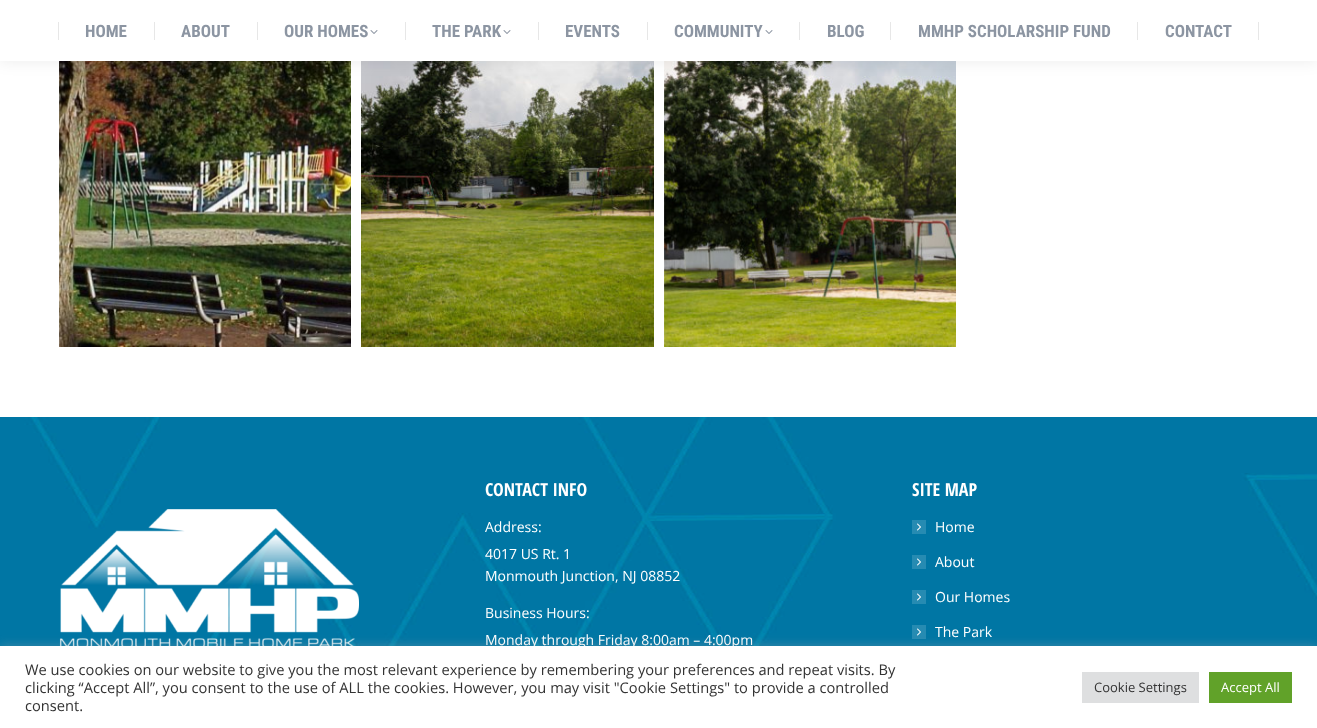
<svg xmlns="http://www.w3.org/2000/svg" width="1317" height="728">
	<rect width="100%" height="100%" fill="#FFFFFF" />
	<image x="59" y="61" width="292" height="286" href="assets/img2.png" />
	<image x="361" y="61" width="293" height="286" href="assets/img3.png" />
	<image x="664" y="61" width="292" height="286" href="assets/img4.png" />
	<rect x="-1" y="-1" width="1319" height="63" fill="#000000" fill-opacity="0.07" filter="blur(7.5px)" />
	<rect x="0" y="0" width="1317" height="61" fill="#FFFFFF" />
	<rect x="58" y="22" width="1" height="18" fill="#E7E7E7" />
	<text x="85" y="37" font-family="Roboto Condensed" font-size="17" font-weight="700" fill="#8C95A2">HOME</text>
	<rect x="154" y="22" width="1" height="18" fill="#E7E7E7" />
	<text x="181" y="37" font-family="Roboto Condensed" font-size="17" font-weight="700" fill="#8C95A2">ABOUT</text>
	<rect x="257" y="22" width="1" height="18" fill="#E7E7E7" />
	<text x="284" y="37" font-family="Roboto Condensed" font-size="17" font-weight="700" fill="#8C95A2">OUR HOMES</text>
	<image x="370" y="30" width="8" height="4" href="assets/img1.png" />
	<rect x="405" y="22" width="1" height="18" fill="#E7E7E7" />
	<text x="432" y="37" font-family="Roboto Condensed" font-size="17" font-weight="700" fill="#8C95A2">THE PARK</text>
	<image x="503" y="30" width="8" height="4" href="assets/img1.png" />
	<rect x="538" y="22" width="1" height="18" fill="#E7E7E7" />
	<text x="565" y="37" font-family="Roboto Condensed" font-size="17" font-weight="700" fill="#8C95A2">EVENTS</text>
	<rect x="647" y="22" width="1" height="18" fill="#E7E7E7" />
	<text x="674" y="37" font-family="Roboto Condensed" font-size="17" font-weight="700" fill="#8C95A2">COMMUNITY</text>
	<image x="765" y="30" width="8" height="4" href="assets/img1.png" />
	<rect x="799" y="22" width="1" height="18" fill="#E7E7E7" />
	<text x="827" y="37" font-family="Roboto Condensed" font-size="17" font-weight="700" fill="#8C95A2">BLOG</text>
	<rect x="890" y="22" width="1" height="18" fill="#E7E7E7" />
	<text x="918" y="37" font-family="Roboto Condensed" font-size="17" font-weight="700" fill="#8C95A2">MMHP SCHOLARSHIP FUND</text>
	<rect x="1137" y="22" width="1" height="18" fill="#E7E7E7" />
	<text x="1165" y="37" font-family="Roboto Condensed" font-size="17" font-weight="700" fill="#8C95A2">CONTACT</text>
	<rect x="1258" y="22" width="1" height="18" fill="#E7E7E7" />
	<image x="0" y="417" width="1317" height="229" href="assets/img5.png" />
	<image x="59" y="509" width="300" height="137" href="assets/img6.png" />
	<text x="485" y="496" font-family="Open Sans Condensed" font-size="18" font-weight="700" fill="#FFFFFF">CONTACT INFO</text>
	<g font-family="Open Sans" font-size="14" fill="#FFFFFF">
		<text x="485" y="532">Address:</text>
		<text x="485" y="559">4017 US Rt. 1</text>
		<text x="485" y="581">Monmouth Junction, NJ 08852</text>
		<text x="485" y="618">Business Hours:</text>
		<text x="485" y="645">Monday through Friday 8:00am – 4:00pm</text>
	</g>
	<text x="912" y="496" font-family="Open Sans Condensed" font-size="18" font-weight="700" fill="#FFFFFF">SITE MAP</text>
	<rect x="912" y="520" width="14" height="14" fill="#268BB2" />
	<text x="935" y="532" font-family="Open Sans" font-size="14" fill="#FFFFFF">Home</text>
	<image x="917" y="523" width="4" height="8" href="assets/img7.png" />
	<rect x="912" y="555" width="14" height="14" fill="#268BB2" />
	<text x="935" y="567" font-family="Open Sans" font-size="14" fill="#FFFFFF">About</text>
	<image x="917" y="558" width="4" height="8" href="assets/img7.png" />
	<rect x="912" y="590" width="14" height="14" fill="#268BB2" />
	<text x="935" y="602" font-family="Open Sans" font-size="14" fill="#FFFFFF">Our Homes</text>
	<image x="917" y="593" width="4" height="8" href="assets/img7.png" />
	<rect x="912" y="625" width="14" height="14" fill="#268BB2" />
	<text x="935" y="637" font-family="Open Sans" font-size="14" fill="#FFFFFF">The Park</text>
	<image x="917" y="628" width="4" height="8" href="assets/img7.png" />
	<rect x="0" y="645" width="1317" height="82" fill="#ACABAB" fill-opacity="0.3" filter="blur(5px)" />
	<rect x="0" y="646" width="1317" height="82" fill="#FFFFFF" />
	<g font-family="Open Sans" font-size="14.67" fill="#333333">
		<text x="25" y="675">We use cookies on our website to give you the most relevant experience by remembering your preferences and repeat visits. By</text>
		<text x="25" y="693">clicking “Accept All”, you consent to the use of ALL the cookies. However, you may visit "Cookie Settings" to provide a controlled</text>
		<text x="25" y="711">consent.</text>
	</g>
	<rect x="1082" y="672" width="117" height="31" fill="#DEDFE0" />
	<text x="1094" y="692" font-family="Open Sans" font-size="13" fill="#333333">Cookie Settings</text>
	<rect x="1209" y="672" width="83" height="31" fill="#61A229" />
	<text x="1221" y="692" font-family="Open Sans" font-size="13" fill="#FFFFFF">Accept All</text>
</svg>
